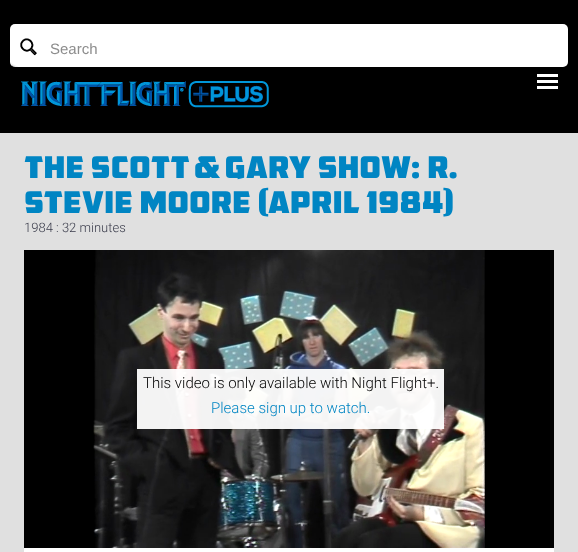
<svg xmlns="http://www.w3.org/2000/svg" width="578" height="552">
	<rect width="100%" height="100%" fill="#000000" />
	<rect x="10" y="24" width="558" height="43" rx="5" fill="#FFFFFF" />
	<image x="11" y="38" width="26" height="29" href="assets/img1.png" />
	<text x="50" y="54" font-family="Liberation Sans" font-size="15" fill="#8D8D8D">Search</text>
	<image x="21" y="81" width="248" height="27" href="assets/img2.png" />
	<rect x="537" y="74" width="21" height="3" fill="#FFFFFF" />
	<rect x="537" y="80" width="21" height="3" fill="#FFFFFF" />
	<rect x="537" y="86" width="21" height="3" fill="#FFFFFF" />
	<rect x="0" y="133" width="578" height="419" fill="#E0E0E0" />
	<g font-family="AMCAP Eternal" font-size="30" fill="#0085C3">
		<text x="24" y="178">The Scott &amp; Gary Show: R.</text>
		<text x="24" y="213">Stevie Moore (April 1984)</text>
	</g>
	<text x="24" y="232" font-family="Roboto" font-size="13" font-weight="300" fill="#383A49">1984 : 32 minutes</text>
	<rect x="24" y="548" width="530" height="4" fill="#FFFFFF" />
	<image x="24" y="250" width="530" height="298" href="assets/img3.png" />
	<rect x="137" y="369" width="307" height="60" fill="#FFFFFF" fill-opacity="0.95" />
	<text x="143" y="388" font-family="Roboto" font-size="15" font-weight="300" fill="#000000">This video is only available with Night Flight+.</text>
	<text x="211" y="413" font-family="Roboto" font-size="15" font-weight="300" fill="#0085C3">Please sign up to watch.</text>
</svg>
